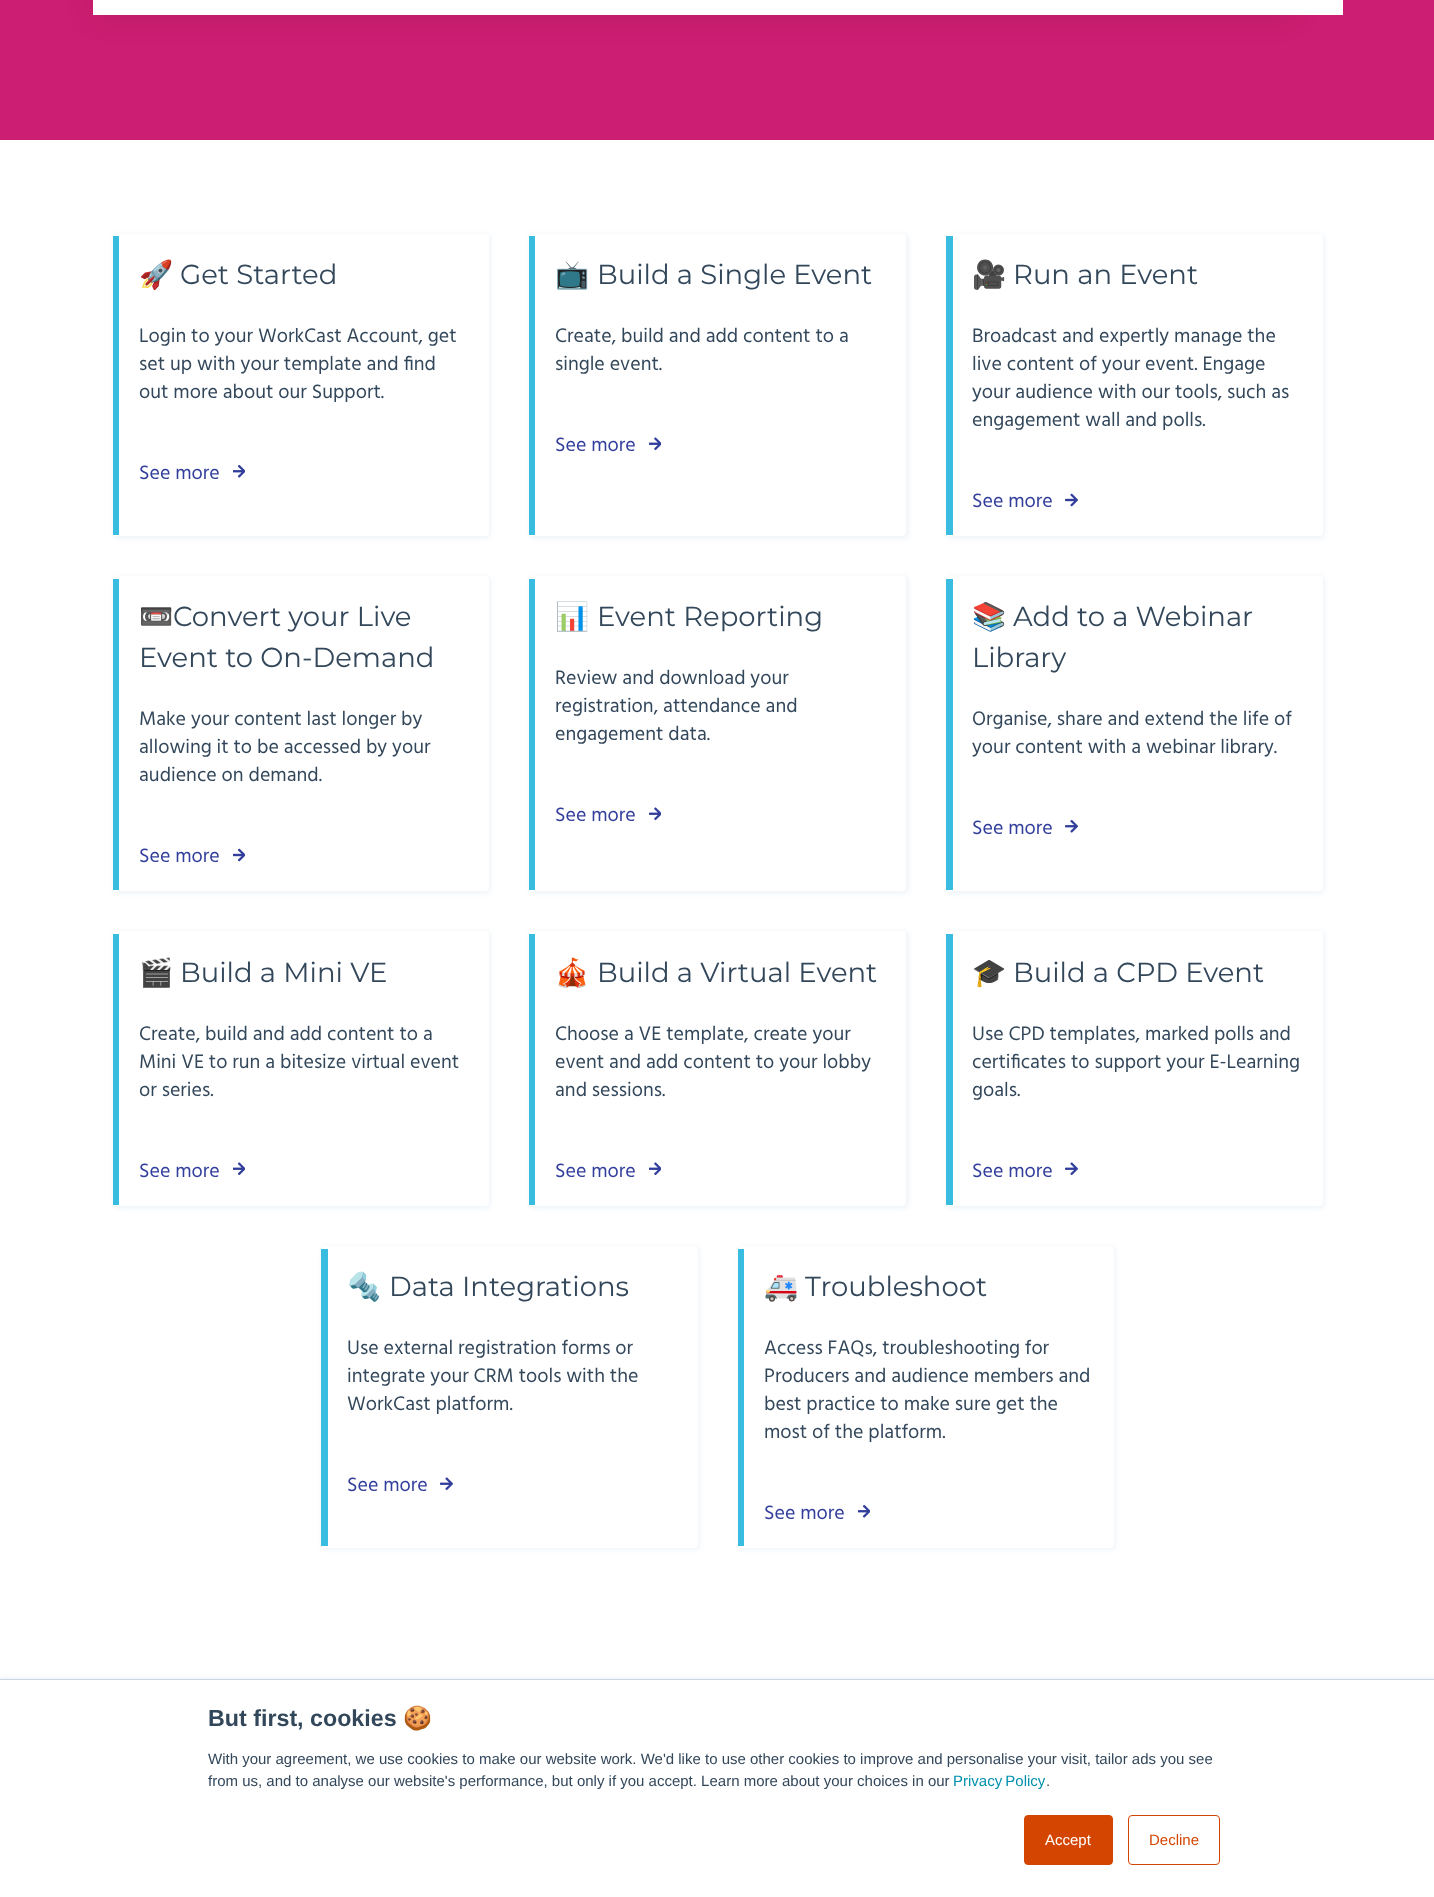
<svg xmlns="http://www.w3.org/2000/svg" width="1434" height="1897">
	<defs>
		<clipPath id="clip1"><path d="M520 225H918V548H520ZM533 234H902C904 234 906 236 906 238V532C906 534 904 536 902 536H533C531 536 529 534 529 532V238C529 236 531 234 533 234Z" clip-rule="evenodd" /></clipPath>
	</defs>
	<rect width="100%" height="100%" fill="#FFFFFF" />
	<rect x="0" y="0" width="1434" height="140" fill="#CC1E72" />
	<rect x="93" y="-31" width="1202" height="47" fill="#000000" fill-opacity="0.08" filter="blur(15px)" />
	<rect x="93" y="0" width="1250" height="15" fill="#FFFFFF" />
	<rect x="113" y="234" width="378" height="305" rx="5" fill="#E2EBF4" fill-opacity="0.5" filter="blur(2.5px)" />
	<rect x="113" y="234" width="376" height="302" rx="4" fill="#FFFFFF" />
	<rect x="113" y="236" width="6" height="299" fill="#38BCE0" />
	<text x="139" y="284" font-family="Noto Color Emoji" font-size="27.5" fill="#33475B">🚀</text>
	<text x="180" y="284" font-family="Montserrat" font-size="27.5" fill="#33475B">Get Started</text>
	<g font-family="Hind" font-size="20" fill="#33475B">
		<text x="139" y="342">Login to your WorkCast Account, get</text>
		<text x="139" y="370">set up with your template and find</text>
		<text x="139" y="398">out more about our Support.</text>
	</g>
	<text x="139" y="479" font-family="Hind" font-size="20" fill="#323E9B">See more</text>
	<image x="233" y="464" width="12" height="14" href="assets/img1.png" />
	<g clip-path="url(#clip1)">
		<rect x="529" y="234" width="380" height="305" rx="5" fill="#E2EBF4" fill-opacity="0.5" filter="blur(2.5px)" />
	</g>
	<rect x="529" y="236" width="6" height="299" fill="#38BCE0" />
	<text x="555" y="284" font-family="Noto Color Emoji" font-size="27.5" fill="#33475B">📺</text>
	<text x="597" y="284" font-family="Montserrat" font-size="27.5" fill="#33475B">Build a Single Event</text>
	<g font-family="Hind" font-size="20" fill="#33475B">
		<text x="555" y="342">Create, build and add content to a</text>
		<text x="555" y="370">single event.</text>
	</g>
	<text x="555" y="451" font-family="Hind" font-size="20" fill="#323E9B">See more</text>
	<image x="649" y="437" width="12" height="14" href="assets/img2.png" />
	<rect x="946" y="234" width="379" height="305" rx="5" fill="#E2EBF4" fill-opacity="0.5" filter="blur(2.5px)" />
	<rect x="946" y="234" width="377" height="302" rx="4" fill="#FFFFFF" />
	<rect x="946" y="236" width="7" height="299" fill="#38BCE0" />
	<text x="972" y="284" font-family="Noto Color Emoji" font-size="27.5" fill="#33475B">🎥</text>
	<text x="1013" y="284" font-family="Montserrat" font-size="27.5" fill="#33475B">Run an Event</text>
	<g font-family="Hind" font-size="20" fill="#33475B">
		<text x="972" y="342">Broadcast and expertly manage the</text>
		<text x="972" y="370">live content of your event. Engage</text>
		<text x="972" y="398">your audience with our tools, such as</text>
		<text x="972" y="426">engagement wall and polls.</text>
	</g>
	<text x="972" y="507" font-family="Hind" font-size="20" fill="#323E9B">See more</text>
	<image x="1065" y="493" width="13" height="14" href="assets/img3.png" />
	<rect x="113" y="576" width="378" height="318" rx="5" fill="#E2EBF4" fill-opacity="0.5" filter="blur(2.5px)" />
	<rect x="113" y="576" width="376" height="315" rx="4" fill="#FFFFFF" />
	<rect x="113" y="579" width="6" height="311" fill="#38BCE0" />
	<text x="139" y="626" font-family="Noto Color Emoji" font-size="27.5" fill="#33475B">📼</text>
	<g font-family="Montserrat" font-size="27.5" fill="#33475B">
		<text x="173" y="626">Convert your Live</text>
		<text x="139" y="667">Event to On-Demand</text>
	</g>
	<g font-family="Hind" font-size="20" fill="#33475B">
		<text x="139" y="725">Make your content last longer by</text>
		<text x="139" y="753">allowing it to be accessed by your</text>
		<text x="139" y="781">audience on demand.</text>
	</g>
	<text x="139" y="862" font-family="Hind" font-size="20" fill="#323E9B">See more</text>
	<image x="233" y="848" width="12" height="14" href="assets/img4.png" />
	<rect x="529" y="576" width="380" height="318" rx="5" fill="#E2EBF4" fill-opacity="0.5" filter="blur(2.5px)" />
	<rect x="529" y="576" width="377" height="315" rx="4" fill="#FFFFFF" />
	<rect x="529" y="579" width="6" height="311" fill="#38BCE0" />
	<text x="555" y="626" font-family="Noto Color Emoji" font-size="27.5" fill="#33475B">📊</text>
	<text x="597" y="626" font-family="Montserrat" font-size="27.5" fill="#33475B">Event Reporting</text>
	<g font-family="Hind" font-size="20" fill="#33475B">
		<text x="555" y="684">Review and download your</text>
		<text x="555" y="712">registration, attendance and</text>
		<text x="555" y="740">engagement data.</text>
	</g>
	<text x="555" y="821" font-family="Hind" font-size="20" fill="#323E9B">See more</text>
	<image x="649" y="807" width="12" height="14" href="assets/img2.png" />
	<rect x="946" y="576" width="379" height="318" rx="5" fill="#E2EBF4" fill-opacity="0.5" filter="blur(2.5px)" />
	<rect x="946" y="576" width="377" height="315" rx="4" fill="#FFFFFF" />
	<rect x="946" y="579" width="7" height="311" fill="#38BCE0" />
	<text x="972" y="626" font-family="Noto Color Emoji" font-size="27.5" fill="#33475B">📚</text>
	<g font-family="Montserrat" font-size="27.5" fill="#33475B">
		<text x="1013" y="626">Add to a Webinar</text>
		<text x="972" y="667">Library</text>
	</g>
	<g font-family="Hind" font-size="20" fill="#33475B">
		<text x="972" y="725">Organise, share and extend the life of</text>
		<text x="972" y="753">your content with a webinar library.</text>
	</g>
	<text x="972" y="834" font-family="Hind" font-size="20" fill="#323E9B">See more</text>
	<image x="1065" y="819" width="13" height="14" href="assets/img5.png" />
	<rect x="113" y="931" width="378" height="278" rx="5" fill="#E2EBF4" fill-opacity="0.5" filter="blur(2.5px)" />
	<rect x="113" y="931" width="376" height="275" rx="4" fill="#FFFFFF" />
	<rect x="113" y="934" width="6" height="271" fill="#38BCE0" />
	<text x="139" y="982" font-family="Noto Color Emoji" font-size="27.5" fill="#33475B">🎬</text>
	<text x="180" y="982" font-family="Montserrat" font-size="27.5" fill="#33475B">Build a Mini VE</text>
	<g font-family="Hind" font-size="20" fill="#33475B">
		<text x="139" y="1040">Create, build and add content to a</text>
		<text x="139" y="1068">Mini VE to run a bitesize virtual event</text>
		<text x="139" y="1096">or series.</text>
	</g>
	<text x="139" y="1177" font-family="Hind" font-size="20" fill="#323E9B">See more</text>
	<image x="233" y="1162" width="12" height="14" href="assets/img6.png" />
	<rect x="529" y="931" width="380" height="278" rx="5" fill="#E2EBF4" fill-opacity="0.5" filter="blur(2.5px)" />
	<rect x="529" y="931" width="377" height="275" rx="4" fill="#FFFFFF" />
	<rect x="529" y="934" width="6" height="271" fill="#38BCE0" />
	<text x="555" y="982" font-family="Noto Color Emoji" font-size="27.5" fill="#33475B">🎪</text>
	<text x="597" y="982" font-family="Montserrat" font-size="27.5" fill="#33475B">Build a Virtual Event</text>
	<g font-family="Hind" font-size="20" fill="#33475B">
		<text x="555" y="1040">Choose a VE template, create your</text>
		<text x="555" y="1068">event and add content to your lobby</text>
		<text x="555" y="1096">and sessions.</text>
	</g>
	<text x="555" y="1177" font-family="Hind" font-size="20" fill="#323E9B">See more</text>
	<image x="649" y="1162" width="12" height="14" href="assets/img2.png" />
	<rect x="946" y="931" width="379" height="278" rx="5" fill="#E2EBF4" fill-opacity="0.5" filter="blur(2.5px)" />
	<rect x="946" y="931" width="377" height="275" rx="4" fill="#FFFFFF" />
	<rect x="946" y="934" width="7" height="271" fill="#38BCE0" />
	<text x="972" y="982" font-family="Noto Color Emoji" font-size="27.5" fill="#33475B">🎓</text>
	<text x="1013" y="982" font-family="Montserrat" font-size="27.5" fill="#33475B">Build a CPD Event</text>
	<g font-family="Hind" font-size="20" fill="#33475B">
		<text x="972" y="1040">Use CPD templates, marked polls and</text>
		<text x="972" y="1068">certificates to support your E-Learning</text>
		<text x="972" y="1096">goals.</text>
	</g>
	<text x="972" y="1177" font-family="Hind" font-size="20" fill="#323E9B">See more</text>
	<image x="1065" y="1162" width="13" height="14" href="assets/img7.png" />
	<rect x="321" y="1246" width="379" height="304" rx="5" fill="#E2EBF4" fill-opacity="0.5" filter="blur(2.5px)" />
	<rect x="321" y="1246" width="377" height="302" rx="4" fill="#FFFFFF" />
	<rect x="321" y="1249" width="7" height="297" fill="#38BCE0" />
	<text x="347" y="1296" font-family="Noto Color Emoji" font-size="27.5" fill="#33475B">🔩</text>
	<text x="389" y="1296" font-family="Montserrat" font-size="27.5" fill="#33475B">Data Integrations</text>
	<g font-family="Hind" font-size="20" fill="#33475B">
		<text x="347" y="1354">Use external registration forms or</text>
		<text x="347" y="1382">integrate your CRM tools with the</text>
		<text x="347" y="1410">WorkCast platform.</text>
	</g>
	<text x="347" y="1491" font-family="Hind" font-size="20" fill="#323E9B">See more</text>
	<image x="440" y="1477" width="13" height="14" href="assets/img7.png" />
	<rect x="738" y="1246" width="378" height="304" rx="5" fill="#E2EBF4" fill-opacity="0.5" filter="blur(2.5px)" />
	<rect x="738" y="1246" width="376" height="302" rx="4" fill="#FFFFFF" />
	<rect x="738" y="1249" width="6" height="297" fill="#38BCE0" />
	<text x="764" y="1296" font-family="Noto Color Emoji" font-size="27.5" fill="#33475B">🚑</text>
	<text x="805" y="1296" font-family="Montserrat" font-size="27.5" fill="#33475B">Troubleshoot</text>
	<g font-family="Hind" font-size="20" fill="#33475B">
		<text x="764" y="1354">Access FAQs, troubleshooting for</text>
		<text x="764" y="1382">Producers and audience members and</text>
		<text x="764" y="1410">best practice to make sure get the</text>
		<text x="764" y="1438">most of the platform.</text>
	</g>
	<text x="764" y="1519" font-family="Hind" font-size="20" fill="#323E9B">See more</text>
	<image x="858" y="1504" width="12" height="14" href="assets/img1.png" />
	<rect x="0" y="1678" width="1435" height="218" fill="#EAF0F6" filter="blur(2px)" />
	<rect x="0" y="1680" width="1434" height="217" fill="#FFFFFF" />
	<rect x="0" y="1679" width="1434" height="1" fill="#CBD6E2" />
	<text x="208" y="1726" font-family="Liberation Sans" font-size="23.25" font-weight="700" fill="#33475B">But first, cookies</text>
	<text x="403" y="1726" font-family="Noto Color Emoji" font-size="23.25" font-weight="700" fill="#33475B">🍪</text>
	<g font-family="Liberation Sans" font-size="15" fill="#33475B">
		<text x="208" y="1764">With your agreement, we use cookies to make our website work. We'd like to use other cookies to improve and personalise your visit, tailor ads you see</text>
		<text x="208" y="1786">from us, and to analyse our website's performance, but only if you accept. Learn more about your choices in our</text>
	</g>
	<text x="953" y="1786" word-spacing="-1" font-family="Liberation Sans" font-size="15" fill="#0091AE">Privacy Policy</text>
	<text x="1046" y="1786" font-family="Liberation Sans" font-size="15" fill="#33475B">.</text>
	<rect x="1024.5" y="1815.5" width="88" height="49" rx="3.5" fill="#D44502" stroke="#D44502" />
	<text x="1045" y="1845" font-family="Liberation Sans" font-size="15" fill="#FFFFFF">Accept</text>
	<rect x="1128.5" y="1815.5" width="91" height="49" rx="3.5" fill="none" stroke="#D44502" />
	<text x="1149" y="1845" font-family="Liberation Sans" font-size="15" fill="#D44502">Decline</text>
</svg>
